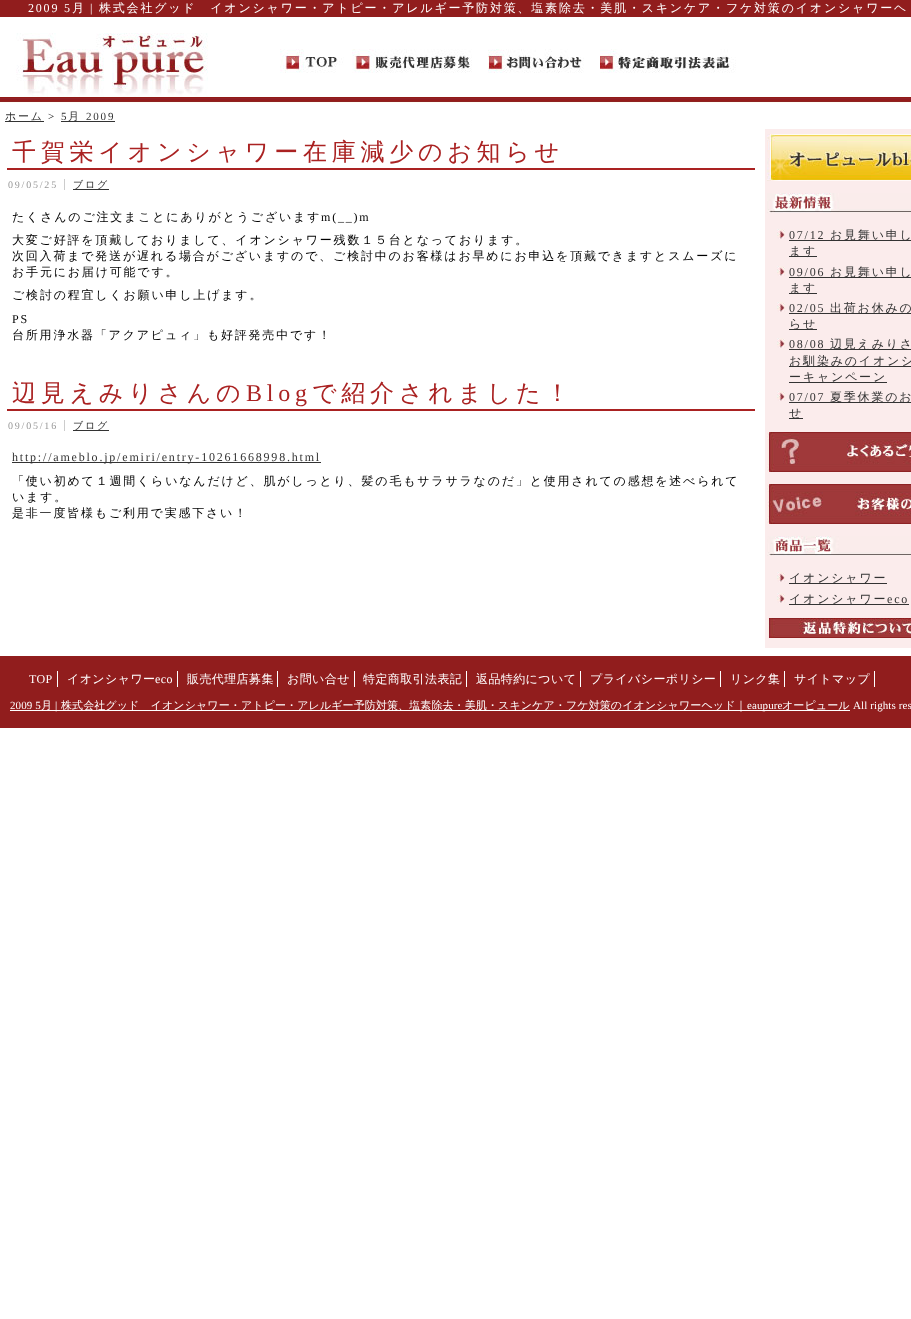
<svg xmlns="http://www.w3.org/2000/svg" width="911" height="1319">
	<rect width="100%" height="100%" fill="#FFFFFF" />
	<rect x="0" y="0" width="911" height="17" fill="#911D1D" />
	<text x="28" y="12" font-family="Liberation Serif" font-size="12" letter-spacing="1.8" fill="#FFFFFF">2009 5</text>
	<text x="72" y="12" font-family="WenQuanYi Zen Hei" font-size="12" font-weight="500" letter-spacing="1.8" fill="#FFFFFF">月</text>
	<text x="90" y="12" font-family="Liberation Serif" font-size="12" letter-spacing="1.8" fill="#FFFFFF">|</text>
	<text x="99" y="12" font-family="WenQuanYi Zen Hei" font-size="12" font-weight="500" letter-spacing="1.8" fill="#FFFFFF">株式会社グッド　イオンシャワー・アトピー・アレルギー予防対策、塩素除去・美肌・スキンケア・フケ対策のイオンシャワーヘ</text>
	<image x="0" y="33" width="911" height="70" href="assets/img1.png" />
	<rect x="5" y="121" width="39" height="1" fill="#333333" />
	<text x="5" y="120" font-family="WenQuanYi Zen Hei" font-size="11" font-weight="500" letter-spacing="1.8" fill="#333333">ホーム</text>
	<text x="48" y="120" font-family="Liberation Serif" font-size="11" letter-spacing="1.8" fill="#000000">&gt;</text>
	<text x="61" y="120" font-family="Liberation Serif" font-size="11" letter-spacing="1.8" fill="#333333">5</text>
	<rect x="61" y="121" width="54" height="1" fill="#333333" />
	<text x="68" y="120" font-family="WenQuanYi Zen Hei" font-size="11" font-weight="500" letter-spacing="1.8" fill="#333333">月</text>
	<text x="86" y="120" font-family="Liberation Serif" font-size="11" letter-spacing="1.8" fill="#333333">2009</text>
	<rect x="7" y="168" width="748" height="2" fill="#AA2222" />
	<text x="12" y="160" font-family="WenQuanYi Zen Hei" font-size="24" font-weight="500" letter-spacing="4.75" fill="#AA2222">千賀栄イオンシャワー在庫減少のお知らせ</text>
	<text x="8" y="188" font-family="Liberation Serif" font-size="10" letter-spacing="1.8" fill="#999999">09/05/25</text>
	<rect x="64" y="179" width="1" height="11" fill="#CCCCCC" />
	<rect x="73" y="189" width="36" height="1" fill="#333333" />
	<text x="73" y="188" font-family="WenQuanYi Zen Hei" font-size="10" font-weight="500" letter-spacing="1.8" fill="#333333">ブログ</text>
	<text x="12" y="221" font-family="WenQuanYi Zen Hei" font-size="12" font-weight="500" letter-spacing="1.8" fill="#000000">たくさんのご注文まことにありがとうございます</text>
	<text x="321" y="221" font-family="Liberation Serif" font-size="12" letter-spacing="1.8" fill="#000000">m(__)m</text>
	<g font-family="WenQuanYi Zen Hei" font-size="12" font-weight="500" letter-spacing="1.8" fill="#000000">
		<text x="12" y="244">大変ご好評を頂戴しておりまして、イオンシャワー残数１５台となっております。</text>
		<text x="12" y="260">次回入荷まで発送が遅れる場合がございますので、ご検討中のお客様はお早めにお申込を頂戴できますとスムーズに</text>
		<text x="12" y="276">お手元にお届け可能です。</text>
		<text x="12" y="299">ご検討の程宜しくお願い申し上げます。</text>
	</g>
	<text x="12" y="323" font-family="Liberation Serif" font-size="12" letter-spacing="1.8" fill="#000000">PS</text>
	<text x="12" y="339" font-family="WenQuanYi Zen Hei" font-size="12" font-weight="500" letter-spacing="1.8" fill="#000000">台所用浄水器「アクアピュィ」も好評発売中です！</text>
	<rect x="7" y="409" width="748" height="2" fill="#AA2222" />
	<text x="12" y="401" font-family="WenQuanYi Zen Hei" font-size="24" font-weight="500" letter-spacing="4.75" fill="#AA2222">辺見えみりさんの</text>
	<text x="246" y="401" font-family="Liberation Serif" font-size="24" letter-spacing="4.75" fill="#AA2222">Blog</text>
	<text x="312" y="401" font-family="WenQuanYi Zen Hei" font-size="24" font-weight="500" letter-spacing="4.75" fill="#AA2222">で紹介されました！</text>
	<text x="8" y="429" font-family="Liberation Serif" font-size="10" letter-spacing="1.8" fill="#999999">09/05/16</text>
	<rect x="64" y="420" width="1" height="11" fill="#CCCCCC" />
	<rect x="73" y="430" width="36" height="1" fill="#333333" />
	<text x="73" y="429" font-family="WenQuanYi Zen Hei" font-size="10" font-weight="500" letter-spacing="1.8" fill="#333333">ブログ</text>
	<rect x="12" y="462" width="309" height="1" fill="#333333" />
	<text x="12" y="461" font-family="Liberation Serif" font-size="12" letter-spacing="1.8" fill="#333333">http://ameblo.jp/emiri/entry-10261668998.html</text>
	<g font-family="WenQuanYi Zen Hei" font-size="12" font-weight="500" letter-spacing="1.8" fill="#000000">
		<text x="12" y="485">「使い初めて１週間くらいなんだけど、肌がしっとり、髪の毛もサラサラなのだ」と使用されての感想を述べられて</text>
		<text x="12" y="501">います。</text>
		<text x="12" y="517">是非一度皆様もご利用で実感下さい！</text>
	</g>
	<rect x="765" y="129" width="146" height="519" fill="#FBECEC" />
	<image x="767" y="134" width="144" height="47" href="assets/img2.png" />
	<image x="767" y="193" width="144" height="20" href="assets/img3.png" />
	<image x="777" y="229" width="8" height="10" href="assets/img4.png" />
	<text x="789" y="239" font-family="Liberation Serif" font-size="12" letter-spacing="1.8" fill="#333333">07/12</text>
	<rect x="789" y="240" width="122" height="1" fill="#333333" />
	<text x="830" y="239" font-family="WenQuanYi Zen Hei" font-size="12" font-weight="500" letter-spacing="1.8" fill="#333333">お見舞い申し</text>
	<rect x="789" y="256" width="28" height="1" fill="#333333" />
	<text x="789" y="255" font-family="WenQuanYi Zen Hei" font-size="12" font-weight="500" letter-spacing="1.8" fill="#333333">ます</text>
	<image x="777" y="266" width="8" height="10" href="assets/img4.png" />
	<text x="789" y="276" font-family="Liberation Serif" font-size="12" letter-spacing="1.8" fill="#333333">09/06</text>
	<rect x="789" y="277" width="122" height="1" fill="#333333" />
	<text x="830" y="276" font-family="WenQuanYi Zen Hei" font-size="12" font-weight="500" letter-spacing="1.8" fill="#333333">お見舞い申し</text>
	<rect x="789" y="293" width="28" height="1" fill="#333333" />
	<text x="789" y="292" font-family="WenQuanYi Zen Hei" font-size="12" font-weight="500" letter-spacing="1.8" fill="#333333">ます</text>
	<image x="777" y="302" width="8" height="10" href="assets/img4.png" />
	<text x="789" y="312" font-family="Liberation Serif" font-size="12" letter-spacing="1.8" fill="#333333">02/05</text>
	<rect x="789" y="313" width="122" height="1" fill="#333333" />
	<text x="830" y="312" font-family="WenQuanYi Zen Hei" font-size="12" font-weight="500" letter-spacing="1.8" fill="#333333">出荷お休みの</text>
	<rect x="789" y="329" width="28" height="1" fill="#333333" />
	<text x="789" y="328" font-family="WenQuanYi Zen Hei" font-size="12" font-weight="500" letter-spacing="1.8" fill="#333333">らせ</text>
	<image x="777" y="338" width="8" height="10" href="assets/img4.png" />
	<text x="789" y="348" font-family="Liberation Serif" font-size="12" letter-spacing="1.8" fill="#333333">08/08</text>
	<rect x="789" y="349" width="122" height="1" fill="#333333" />
	<text x="830" y="348" font-family="WenQuanYi Zen Hei" font-size="12" font-weight="500" letter-spacing="1.8" fill="#333333">辺見えみりさ</text>
	<rect x="789" y="366" width="122" height="1" fill="#333333" />
	<text x="789" y="365" font-family="WenQuanYi Zen Hei" font-size="12" font-weight="500" letter-spacing="1.8" fill="#333333">お馴染みのイオンシ</text>
	<rect x="789" y="382" width="98" height="1" fill="#333333" />
	<text x="789" y="381" font-family="WenQuanYi Zen Hei" font-size="12" font-weight="500" letter-spacing="1.8" fill="#333333">ーキャンペーン</text>
	<image x="777" y="391" width="8" height="10" href="assets/img4.png" />
	<text x="789" y="401" font-family="Liberation Serif" font-size="12" letter-spacing="1.8" fill="#333333">07/07</text>
	<rect x="789" y="402" width="122" height="1" fill="#333333" />
	<text x="830" y="401" font-family="WenQuanYi Zen Hei" font-size="12" font-weight="500" letter-spacing="1.8" fill="#333333">夏季休業のお</text>
	<rect x="789" y="418" width="14" height="1" fill="#333333" />
	<text x="789" y="417" font-family="WenQuanYi Zen Hei" font-size="12" font-weight="500" letter-spacing="1.8" fill="#333333">せ</text>
	<image x="767" y="432" width="144" height="40" href="assets/img5.png" />
	<image x="767" y="484" width="144" height="40" href="assets/img6.png" />
	<image x="767" y="536" width="144" height="20" href="assets/img7.png" />
	<image x="777" y="572" width="8" height="10" href="assets/img4.png" />
	<rect x="789" y="583" width="98" height="1" fill="#333333" />
	<text x="789" y="582" font-family="WenQuanYi Zen Hei" font-size="12" font-weight="500" letter-spacing="1.8" fill="#333333">イオンシャワー</text>
	<image x="777" y="593" width="8" height="10" href="assets/img4.png" />
	<rect x="789" y="604" width="120" height="1" fill="#333333" />
	<text x="789" y="603" font-family="WenQuanYi Zen Hei" font-size="12" font-weight="500" letter-spacing="1.8" fill="#333333">イオンシャワー</text>
	<text x="887" y="603" font-family="Liberation Serif" font-size="12" letter-spacing="1.8" fill="#333333">eco</text>
	<image x="768" y="618" width="143" height="20" href="assets/img8.png" />
	<rect x="0" y="656" width="911" height="72" fill="#911D1D" />
	<text x="29" y="683" font-family="Liberation Serif" font-size="12" letter-spacing="0.4" fill="#FFFFFF">TOP</text>
	<rect x="57" y="671" width="1" height="16" fill="#FFFFFF" />
	<text x="67" y="683" font-family="WenQuanYi Zen Hei" font-size="12" font-weight="500" letter-spacing="0.4" fill="#FFFFFF">イオンシャワー</text>
	<text x="155" y="683" font-family="Liberation Serif" font-size="12" letter-spacing="0.4" fill="#FFFFFF">eco</text>
	<rect x="177" y="671" width="1" height="16" fill="#FFFFFF" />
	<text x="187" y="683" font-family="WenQuanYi Zen Hei" font-size="12" font-weight="500" letter-spacing="0.4" fill="#FFFFFF">販売代理店募集</text>
	<rect x="277" y="671" width="1" height="16" fill="#FFFFFF" />
	<text x="287" y="683" font-family="WenQuanYi Zen Hei" font-size="12" font-weight="500" letter-spacing="0.4" fill="#FFFFFF">お問い合せ</text>
	<rect x="354" y="671" width="1" height="16" fill="#FFFFFF" />
	<text x="363" y="683" font-family="WenQuanYi Zen Hei" font-size="12" font-weight="500" letter-spacing="0.4" fill="#FFFFFF">特定商取引法表記</text>
	<rect x="466" y="671" width="1" height="16" fill="#FFFFFF" />
	<text x="476" y="683" font-family="WenQuanYi Zen Hei" font-size="12" font-weight="500" letter-spacing="0.4" fill="#FFFFFF">返品特約について</text>
	<rect x="580" y="671" width="1" height="16" fill="#FFFFFF" />
	<text x="590" y="683" font-family="WenQuanYi Zen Hei" font-size="12" font-weight="500" letter-spacing="0.4" fill="#FFFFFF">プライバシーポリシー</text>
	<rect x="720" y="671" width="1" height="16" fill="#FFFFFF" />
	<text x="730" y="683" font-family="WenQuanYi Zen Hei" font-size="12" font-weight="500" letter-spacing="0.4" fill="#FFFFFF">リンク集</text>
	<rect x="784" y="671" width="1" height="16" fill="#FFFFFF" />
	<text x="794" y="683" font-family="WenQuanYi Zen Hei" font-size="12" font-weight="500" letter-spacing="0.4" fill="#FFFFFF">サイトマップ</text>
	<rect x="874" y="671" width="1" height="16" fill="#FFFFFF" />
	<text x="10" y="709" font-family="Liberation Serif" font-size="11" letter-spacing="0.1" fill="#FFFFFF">2009 5</text>
	<rect x="10" y="710" width="840" height="1" fill="#FFFFFF" />
	<text x="41" y="709" font-family="WenQuanYi Zen Hei" font-size="11" font-weight="500" letter-spacing="0.1" fill="#FFFFFF">月</text>
	<text x="55" y="709" font-family="Liberation Serif" font-size="11" letter-spacing="0.1" fill="#FFFFFF">|</text>
	<text x="61" y="709" font-family="WenQuanYi Zen Hei" font-size="11" font-weight="500" letter-spacing="0.1" fill="#FFFFFF">株式会社グッド　イオンシャワー・アトピー・アレルギー予防対策、塩素除去・美肌・スキンケア・フケ対策のイオンシャワーヘッド｜</text>
	<text x="747" y="709" font-family="Liberation Serif" font-size="11" letter-spacing="0.1" fill="#FFFFFF">eaupure</text>
	<text x="782" y="709" font-family="WenQuanYi Zen Hei" font-size="11" font-weight="500" letter-spacing="0.1" fill="#FFFFFF">オーピュール</text>
	<text x="853" y="709" font-family="Liberation Serif" font-size="11" letter-spacing="0.1" fill="#FFFFFF">All rights res</text>
</svg>
